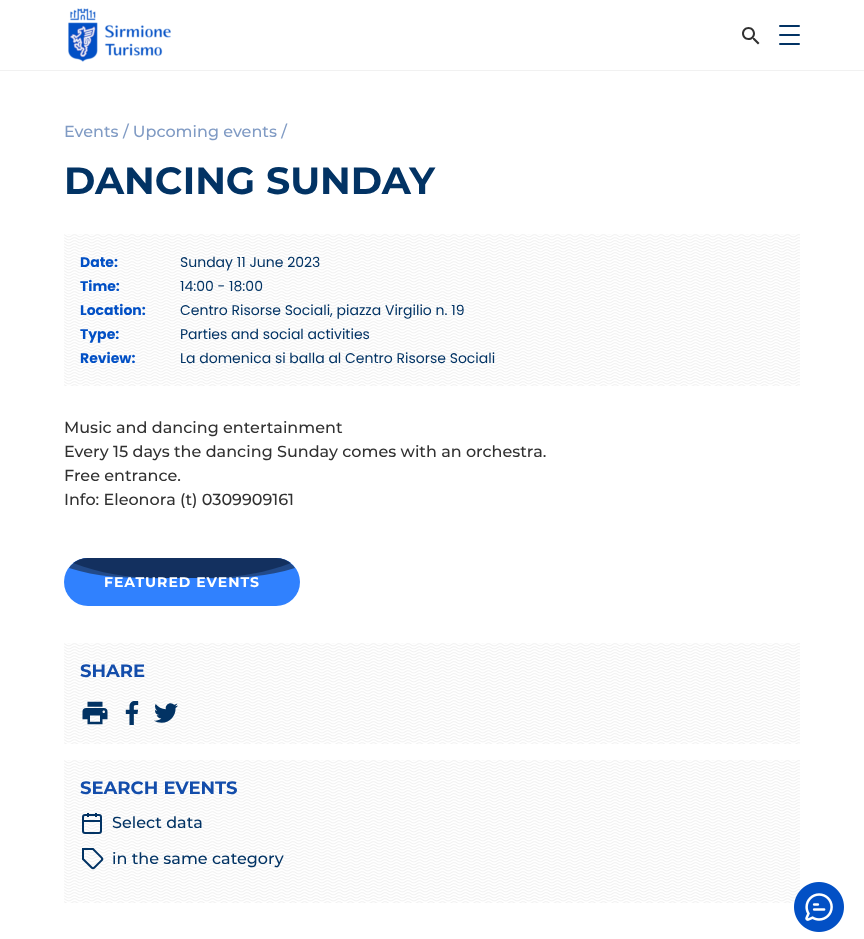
<svg xmlns="http://www.w3.org/2000/svg" width="864" height="939">
	<rect width="100%" height="100%" fill="#FFFFFF" />
	<rect x="0" y="70" width="864" height="1" fill="#F1F1F1" />
	<image x="68" y="8" width="103" height="54" href="assets/img1.png" />
	<image x="742" y="27" width="18" height="18" href="assets/img2.png" />
	<rect x="779" y="25" width="21" height="2" rx="1" fill="#023364" />
	<rect x="779" y="34" width="21" height="2" rx="1" fill="#023364" />
	<rect x="779" y="43" width="21" height="2" rx="1" fill="#023364" />
	<text x="64" y="137" font-family="Montserrat" font-size="16" font-weight="500" fill="#809BC4">Events / Upcoming events /</text>
	<text x="64" y="194" font-family="Montserrat" font-size="38" font-weight="700" fill="#023364">DANCING SUNDAY</text>
	<image x="64" y="234" width="736" height="152" href="assets/img3.png" />
	<text x="80" y="267" font-family="Poppins" font-size="14" font-weight="700" fill="#0250C5">Date:</text>
	<text x="180" y="267" font-family="Poppins" font-size="14" fill="#023364">Sunday 11 June 2023</text>
	<text x="80" y="291" font-family="Poppins" font-size="14" font-weight="700" fill="#0250C5">Time:</text>
	<text x="180" y="291" font-family="Poppins" font-size="14" fill="#023364">14:00 - 18:00</text>
	<text x="80" y="315" font-family="Poppins" font-size="14" font-weight="700" fill="#0250C5">Location:</text>
	<text x="180" y="315" font-family="Poppins" font-size="14" fill="#023364">Centro Risorse Sociali, piazza Virgilio n. 19</text>
	<text x="80" y="339" font-family="Poppins" font-size="14" font-weight="700" fill="#0250C5">Type:</text>
	<text x="180" y="339" font-family="Poppins" font-size="14" fill="#023364">Parties and social activities</text>
	<text x="80" y="363" font-family="Poppins" font-size="14" font-weight="700" fill="#0250C5">Review:</text>
	<text x="180" y="363" font-family="Poppins" font-size="14" fill="#023364">La domenica si balla al Centro Risorse Sociali</text>
	<g font-family="Montserrat" font-size="16" font-weight="500" fill="#313131">
		<text x="64" y="433">Music and dancing entertainment</text>
		<text x="64" y="457">Every 15 days the dancing Sunday comes with an orchestra.</text>
		<text x="64" y="481">Free entrance.</text>
		<text x="64" y="505">Info: Eleonora (t) 0309909161</text>
	</g>
	<rect x="64" y="558" width="236" height="48" rx="24" fill="#3081FE" />
	<path d="M88 558H276C282 558 287 560 291 563C265 573 236 578 206 578H158C128 578 99 573 73 563C77 560 82 558 88 558Z" fill="#134DAB" />
	<path d="M88 558H276C284 558 291 562 295 568C257 580 222 578 182 578C142 578 107 580 69 568C73 562 80 558 88 558Z" fill="#141414" fill-opacity="0.5" />
	<text x="104" y="587" font-family="Montserrat" font-size="14" font-weight="700" letter-spacing="1" fill="#FFFFFF">FEATURED EVENTS</text>
	<image x="64" y="643" width="736" height="101" href="assets/img4.png" />
	<text x="80" y="677" font-family="Montserrat" font-size="18" font-weight="700" fill="#134DAB">SHARE</text>
	<image x="82" y="701" width="26" height="24" href="assets/img5.png" />
	<image x="125" y="701" width="14" height="24" href="assets/img6.png" />
	<image x="154" y="703" width="24" height="20" href="assets/img7.png" />
	<image x="64" y="760" width="736" height="143" href="assets/img8.png" />
	<text x="80" y="794" font-family="Montserrat" font-size="18" font-weight="700" fill="#134DAB">SEARCH EVENTS</text>
	<image x="82" y="813" width="20" height="21" href="assets/img9.png" />
	<text x="112" y="828" font-family="Montserrat" font-size="16" font-weight="500" fill="#023364">Select data</text>
	<image x="82" y="848" width="22" height="22" href="assets/img10.png" />
	<text x="112" y="864" font-family="Montserrat" font-size="16" font-weight="500" fill="#023364">in the same category</text>
	<image x="794" y="882" width="50" height="50" href="assets/img11.png" />
</svg>
